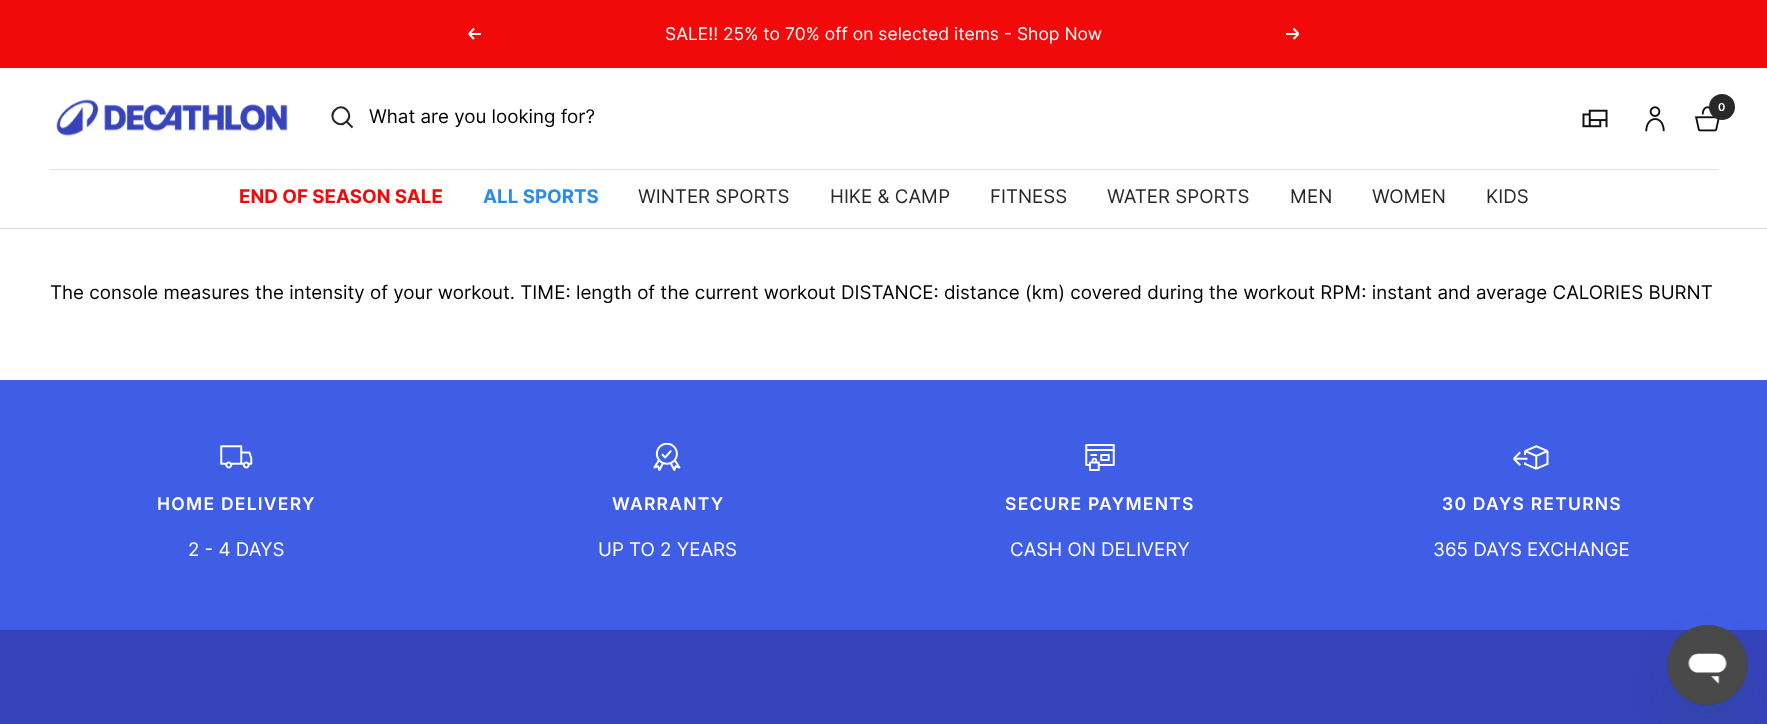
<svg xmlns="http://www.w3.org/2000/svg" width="1767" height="724">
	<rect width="100%" height="100%" fill="#FFFFFF" />
	<rect x="0" y="0" width="1767" height="68" fill="#F20909" />
	<path d="M481 34H469M469 34L474 39M469 34L474 28.5" fill="none" stroke="#FFFFFF" stroke-width="2" />
	<text x="665" y="40" font-family="Inter" font-size="17.5" fill="#FFFFFF">SALE!! 25% to 70% off on selected items - Shop Now</text>
	<path d="M1286 34H1298.5M1298.5 34L1293.5 39M1298.5 34L1293.5 28.5" fill="none" stroke="#FFFFFF" stroke-width="2" />
	<path d="M0 228V229H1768V69V228Z" fill="#D9D9D9" />
	<image x="56" y="99" width="232" height="38" href="assets/img1.png" />
	<image x="1582" y="109" width="26" height="19" href="assets/img2.png" />
	<image x="1645" y="106" width="20" height="26" href="assets/img3.png" />
	<image x="1695" y="106" width="25" height="26" href="assets/img4.png" />
	<circle cx="1722" cy="107" r="13" fill="#282828" />
	<text x="1718" y="111" font-family="Inter" font-size="11" font-weight="600" fill="#FFFFFF">0</text>
	<path d="M346.5 121.5C354.5 114 343 102 335 110C327 118 339 129.5 346.5 121.5ZM346.5 121.5L352.5 127.5" fill="none" stroke="#282828" stroke-width="2" />
	<text x="369" y="123" font-family="Inter" font-size="18.75" fill="#000000">What are you looking for?</text>
	<rect x="50" y="169" width="1668" height="1" fill="#DFDFDF" />
	<text x="239" y="203" font-family="Inter" font-size="18.75" font-weight="700" fill="#F20909">END OF SEASON SALE</text>
	<text x="483" y="203" font-family="Inter" font-size="18.75" font-weight="700" fill="#2C8CE9">ALL SPORTS</text>
	<g font-family="Inter" font-size="18.75" fill="#282828">
		<text x="638" y="203">WINTER SPORTS</text>
		<text x="830" y="203">HIKE &amp; CAMP</text>
		<text x="990" y="203">FITNESS</text>
		<text x="1107" y="203">WATER SPORTS</text>
		<text x="1290" y="203">MEN</text>
		<text x="1372" y="203">WOMEN</text>
		<text x="1486" y="203">KIDS</text>
	</g>
	<text x="50" y="299" font-family="Inter" font-size="18.75" fill="#000000">The console measures the intensity of your workout. TIME: length of the current workout DISTANCE: distance (km) covered during the workout RPM: instant and average CALORIES BURNT</text>
	<rect x="0" y="380" width="1767" height="250" fill="#405DE6" />
	<image x="220" y="445" width="33" height="24" href="assets/img5.png" />
	<text x="157" y="510" font-family="Inter" font-size="17.5" font-weight="600" letter-spacing="1.25" fill="#FFFFFF">HOME DELIVERY</text>
	<text x="188" y="556" font-family="Inter" font-size="18.75" fill="#FFFFFF">2 - 4 DAYS</text>
	<image x="653" y="443" width="28" height="28" href="assets/img6.png" />
	<text x="612" y="510" font-family="Inter" font-size="17.5" font-weight="600" letter-spacing="1.25" fill="#FFFFFF">WARRANTY</text>
	<text x="598" y="556" font-family="Inter" font-size="18.75" fill="#FFFFFF">UP TO 2 YEARS</text>
	<image x="1085" y="444" width="30" height="27" href="assets/img7.png" />
	<text x="1005" y="510" font-family="Inter" font-size="17.5" font-weight="600" letter-spacing="1.25" fill="#FFFFFF">SECURE PAYMENTS</text>
	<text x="1010" y="556" font-family="Inter" font-size="18.75" fill="#FFFFFF">CASH ON DELIVERY</text>
	<image x="1513" y="445" width="36" height="25" href="assets/img8.png" />
	<text x="1442" y="510" font-family="Inter" font-size="17.5" font-weight="600" letter-spacing="1.25" fill="#FFFFFF">30 DAYS RETURNS</text>
	<text x="1433" y="556" font-family="Inter" font-size="18.75" fill="#FFFFFF">365 DAYS EXCHANGE</text>
	<rect x="0" y="630" width="1767" height="94" fill="#3643BA" />
	<rect x="1668" y="650" width="80" height="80" rx="40" fill="#17494D" fill-opacity="0.15" filter="blur(19px)" />
	<image x="1667" y="625" width="81" height="80" href="assets/img9.png" />
</svg>
